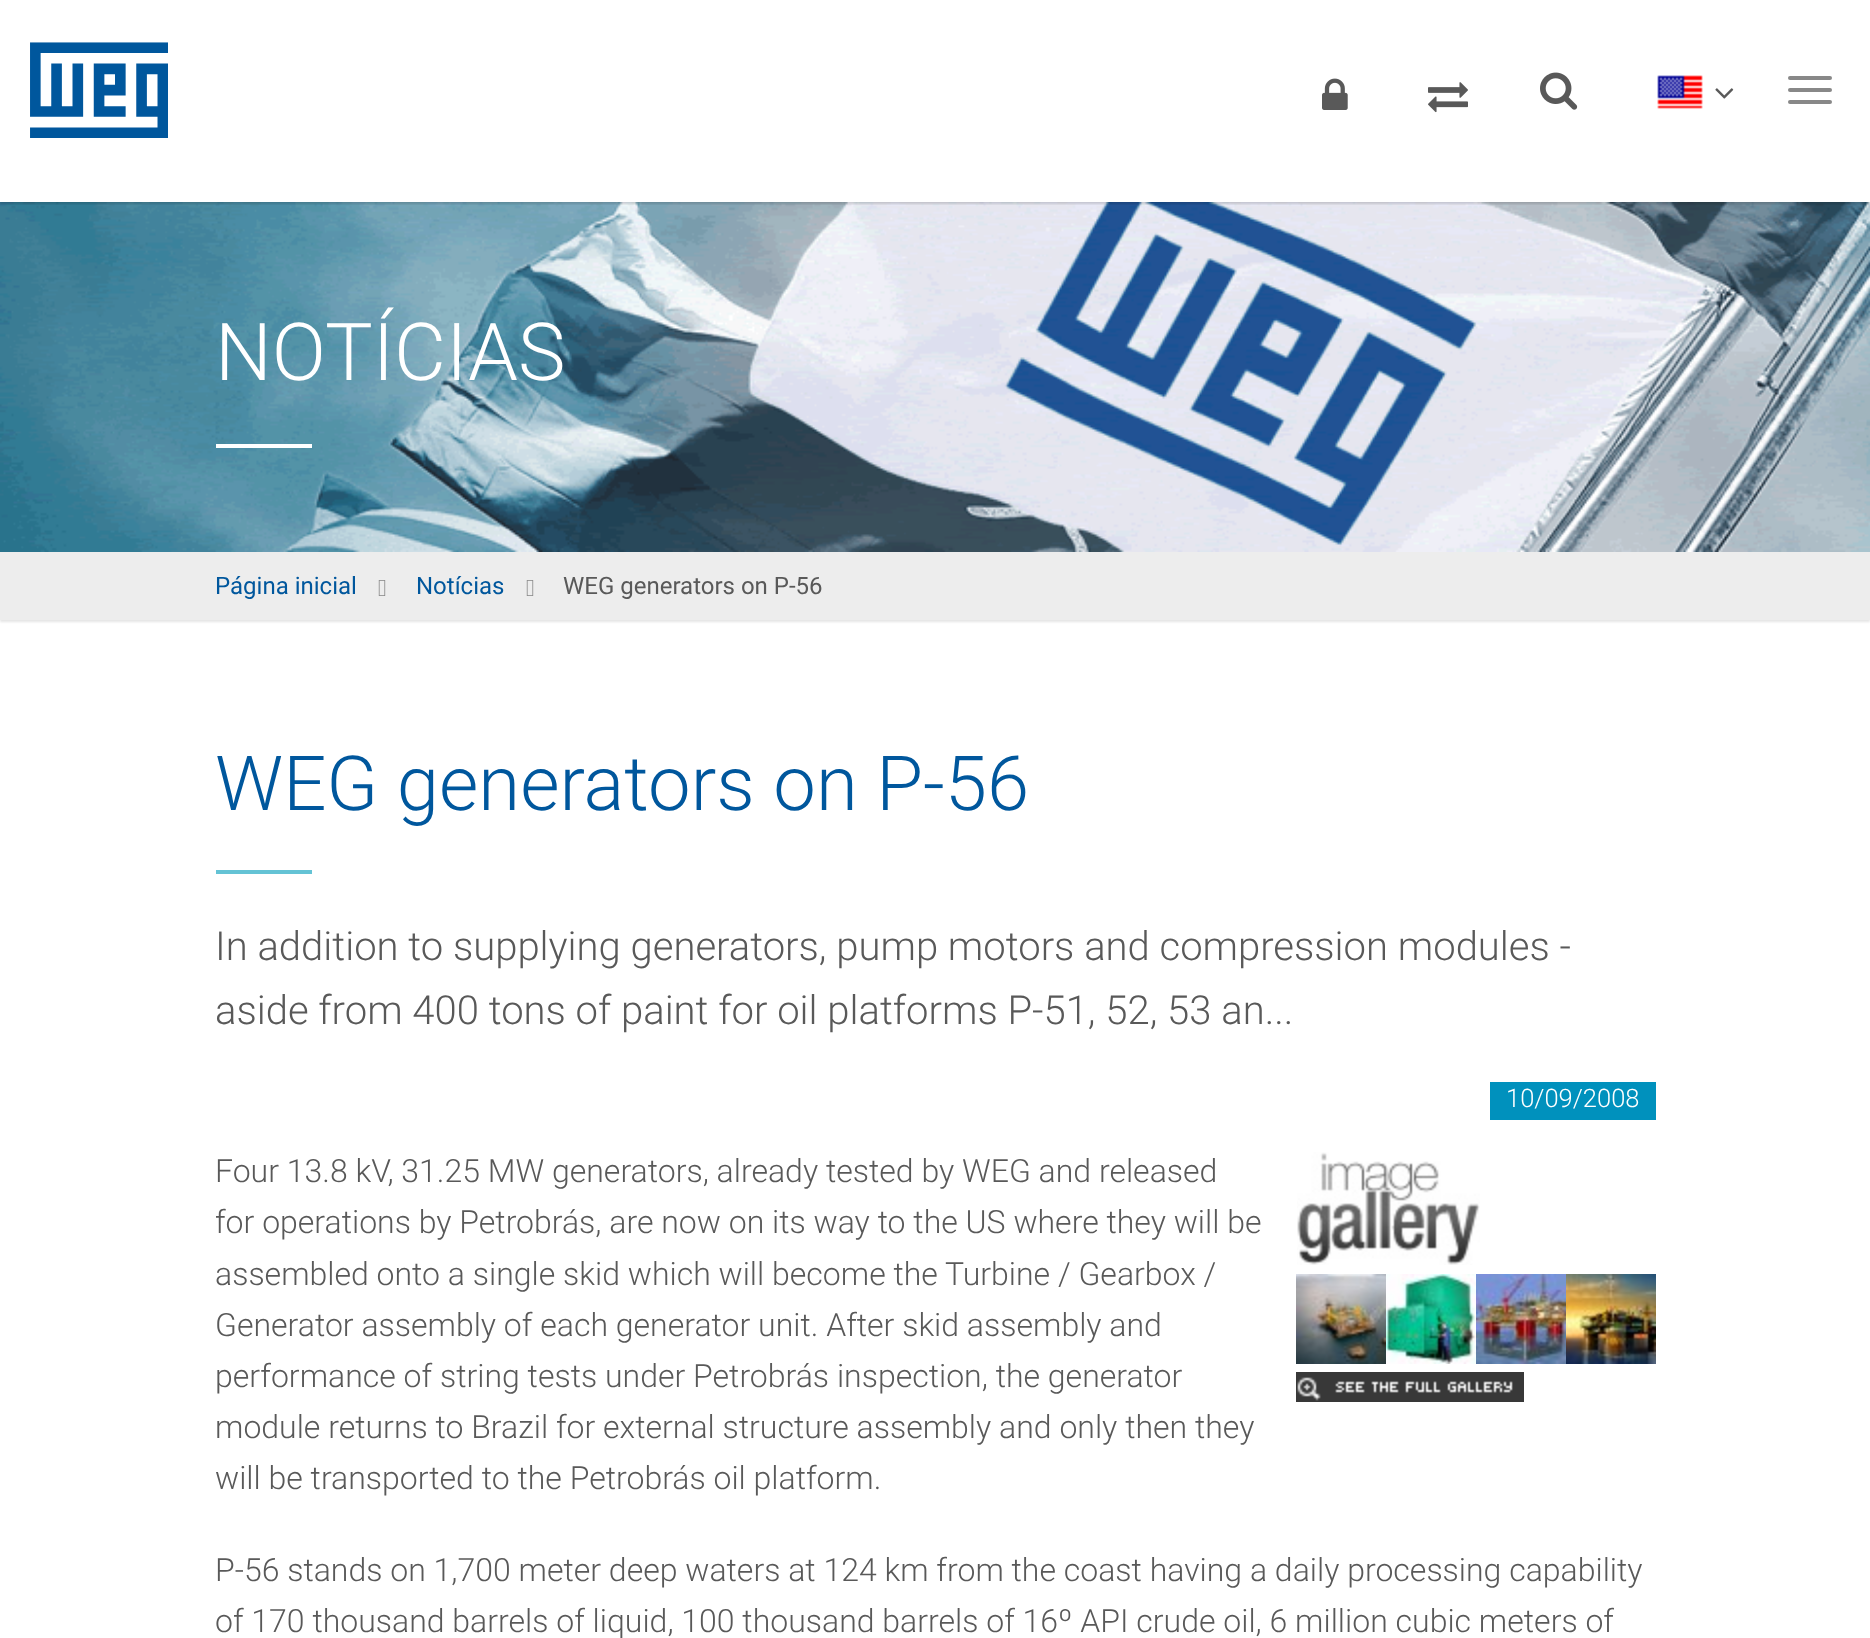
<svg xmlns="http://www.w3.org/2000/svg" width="1870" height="1638">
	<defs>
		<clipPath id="clip1"><rect x="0" y="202" width="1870" height="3" /></clipPath>
	</defs>
	<rect width="100%" height="100%" fill="#FFFFFF" />
	<image x="0" y="202" width="1870" height="350" href="assets/img7.png" />
	<g clip-path="url(#clip1)">
		<rect x="0" y="2" width="1870" height="202" fill="#000000" fill-opacity="0.15" filter="blur(1px)" />
	</g>
	<image x="30" y="42" width="138" height="96" href="assets/img1.png" />
	<image x="1322" y="78" width="26" height="32" href="assets/img2.png" />
	<image x="1428" y="82" width="40" height="31" href="assets/img3.png" />
	<image x="1540" y="72" width="38" height="38" href="assets/img4.png" />
	<image x="1657" y="75" width="46" height="34" href="assets/img5.png" />
	<image x="1715" y="88" width="19" height="11" href="assets/img6.png" />
	<rect x="1788" y="76" width="44" height="4" rx="2" fill="#888888" />
	<rect x="1788" y="88" width="44" height="4" rx="2" fill="#888888" />
	<rect x="1788" y="100" width="44" height="4" rx="2" fill="#888888" />
	<text x="215" y="380" font-family="Roboto" font-size="80" font-weight="300" fill="#FFFFFF">NOTÍCIAS</text>
	<rect x="216" y="444" width="96" height="4" fill="#FFFFFF" />
	<rect x="0" y="554" width="1870" height="68" fill="#000000" fill-opacity="0.1" filter="blur(1px)" />
	<rect x="0" y="552" width="1870" height="68" fill="#EDEDED" />
	<text x="215" y="594" font-family="Roboto" font-size="24" fill="#00579D">Página inicial</text>
	<image x="378" y="580" width="8" height="16" href="assets/img8.png" />
	<text x="416" y="594" font-family="Roboto" font-size="24" fill="#00579D">Notícias</text>
	<image x="526" y="580" width="8" height="16" href="assets/img8.png" />
	<text x="563" y="594" font-family="Roboto" font-size="24" fill="#595959">WEG generators on P-56</text>
	<text x="215" y="810" font-family="Roboto" font-size="76" font-weight="300" fill="#00579D">WEG generators on P-56</text>
	<rect x="216" y="870" width="96" height="4" fill="#64C3D5" />
	<g font-family="Roboto" font-size="40" font-weight="300" fill="#595959">
		<text x="215" y="960">In addition to supplying generators, pump motors and compression modules -</text>
		<text x="215" y="1024">aside from 400 tons of paint for oil platforms P-51, 52, 53 an...</text>
	</g>
	<rect x="1490" y="1082" width="166" height="38" fill="#0091BD" />
	<text x="1506" y="1107" font-family="Roboto" font-size="25.5" font-weight="300" fill="#FFFFFF">10/09/2008</text>
	<g font-family="Roboto" font-size="32" font-weight="300" fill="#595959">
		<text x="215" y="1182">Four 13.8 kV, 31.25 MW generators, already tested by WEG and released</text>
		<text x="215" y="1233">for operations by Petrobrás, are now on its way to the US where they will be</text>
		<text x="215" y="1285">assembled onto a single skid which will become the Turbine / Gearbox /</text>
		<text x="215" y="1336">Generator assembly of each generator unit. After skid assembly and</text>
		<text x="215" y="1387">performance of string tests under Petrobrás inspection, the generator</text>
		<text x="215" y="1438">module returns to Brazil for external structure assembly and only then they</text>
		<text x="215" y="1489">will be transported to the Petrobrás oil platform.</text>
	</g>
	<image x="1297" y="1152" width="183" height="113" href="assets/img9.png" />
	<image x="1296" y="1274" width="90" height="90" href="assets/img10.png" />
	<image x="1386" y="1274" width="90" height="90" href="assets/img11.png" />
	<image x="1476" y="1274" width="90" height="90" href="assets/img12.png" />
	<image x="1566" y="1274" width="90" height="90" href="assets/img13.png" />
	<image x="1296" y="1372" width="228" height="30" href="assets/img14.png" />
	<g font-family="Roboto" font-size="32" font-weight="300" fill="#595959">
		<text x="215" y="1581">P-56 stands on 1,700 meter deep waters at 124 km from the coast having a daily processing capability</text>
		<text x="215" y="1632">of 170 thousand barrels of liquid, 100 thousand barrels of 16º API crude oil, 6 million cubic meters of</text>
	</g>
</svg>
